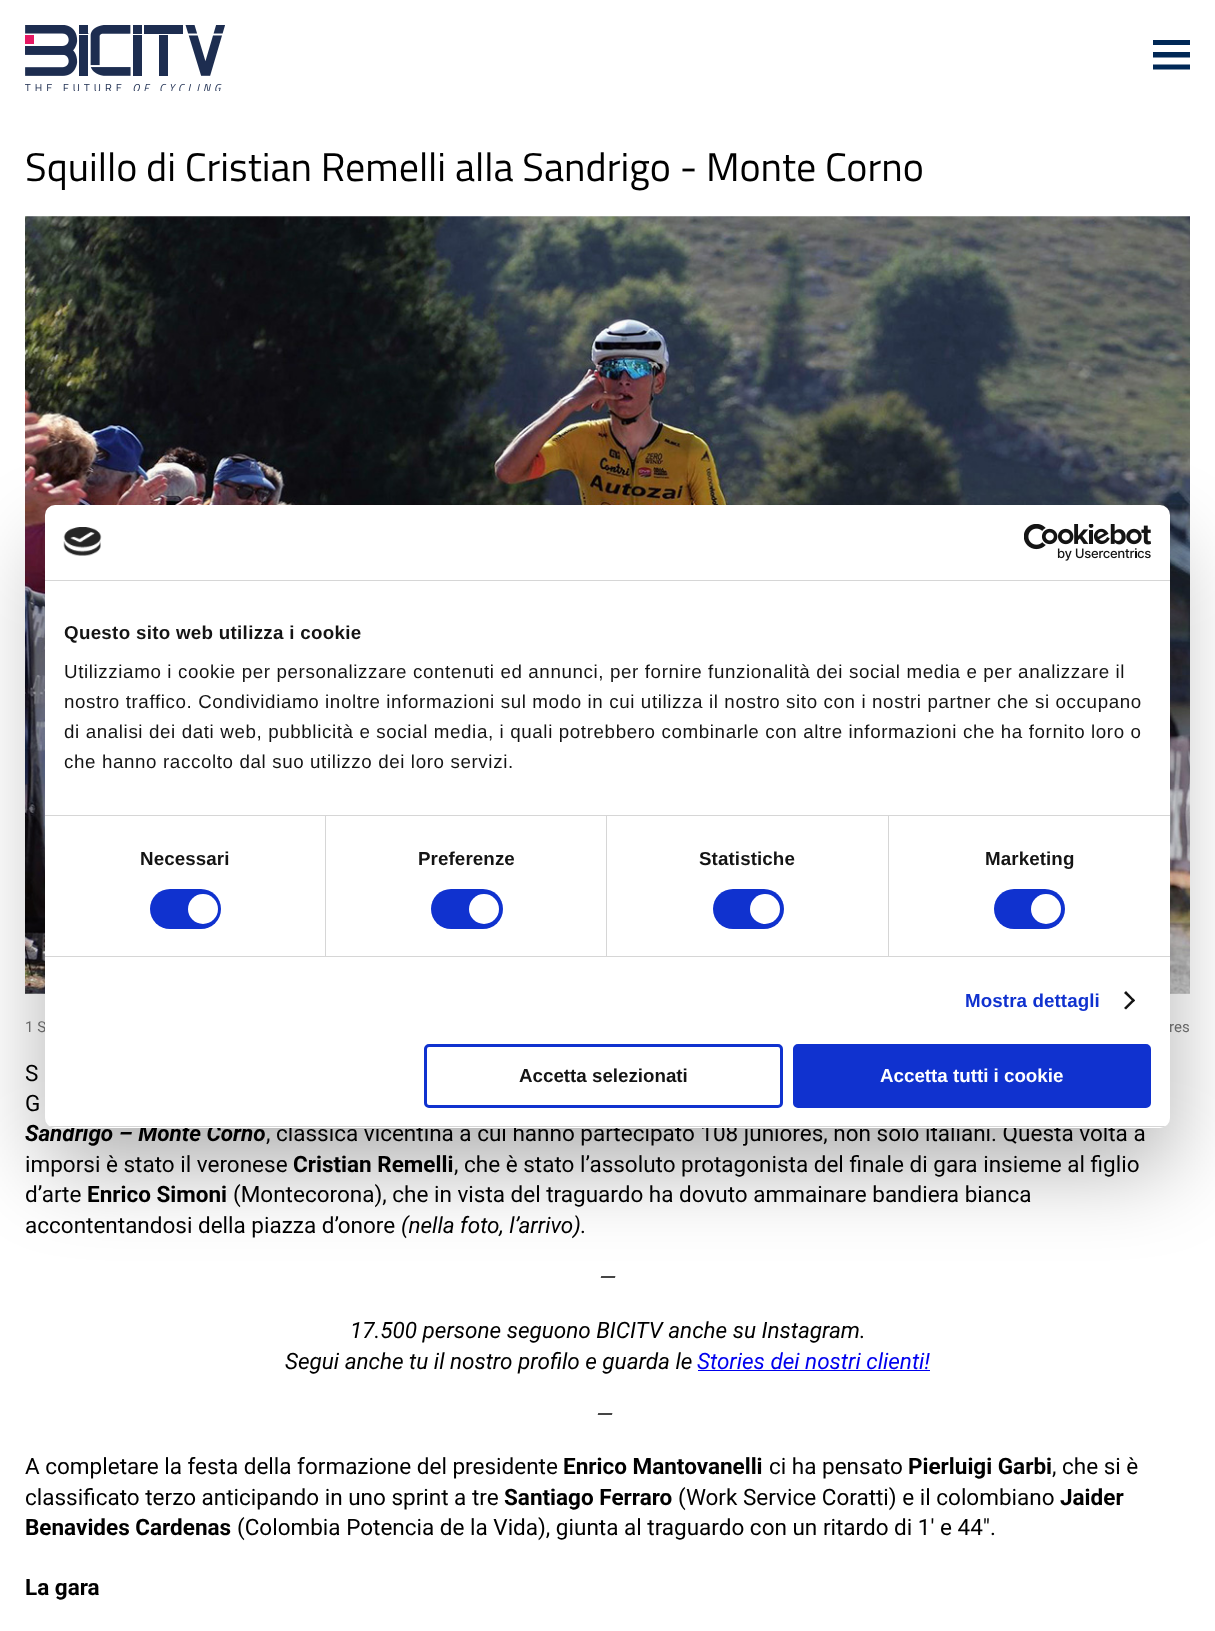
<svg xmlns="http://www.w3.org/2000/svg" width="1215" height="1631">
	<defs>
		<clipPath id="clip1"><rect x="1153" y="40" width="37" height="30" /></clipPath>
		<clipPath id="clip2"><rect x="45" y="505" width="1125" height="623" rx="10" /></clipPath>
	</defs>
	<rect width="100%" height="100%" fill="#FFFFFF" />
	<image x="25" y="25" width="200" height="66" href="assets/img1.png" />
	<g clip-path="url(#clip1)">
		<path d="M1152.5 40V45H1190V40ZM1152.5 52V57.5H1190V52ZM1152.5 64.5V69.5H1190V64.5Z" fill="#002856" />
	</g>
	<text x="25" y="181" font-family="Titillium Web" font-size="40" fill="#000000">Squillo di Cristian Remelli alla Sandrigo - Monte Corno</text>
	<image x="25" y="216" width="1165" height="778" href="assets/img2.png" />
	<g font-family="Roboto" font-size="15" fill="#757575">
		<text x="25" y="1032">1 S</text>
		<text x="1169" y="1032">res</text>
	</g>
	<g font-family="Roboto" font-size="22.5" fill="#000000">
		<text x="25" y="1081">S</text>
		<text x="25" y="1111">G</text>
	</g>
	<text x="25" y="1141" font-family="Roboto" font-size="22.5" font-weight="700" font-style="italic" fill="#000000">Sandrigo – Monte Corno</text>
	<g font-family="Roboto" font-size="22.5" fill="#000000">
		<text x="266" y="1141">, classica vicentina a cui hanno partecipato 108 juniores, non solo italiani. Questa volta a</text>
		<text x="25" y="1172">imporsi è stato il veronese</text>
	</g>
	<text x="293" y="1172" font-family="Roboto" font-size="22.5" font-weight="700" fill="#000000">Cristian Remelli</text>
	<g font-family="Roboto" font-size="22.5" fill="#000000">
		<text x="454" y="1172">, che è stato l’assoluto protagonista del finale di gara insieme al figlio</text>
		<text x="25" y="1202">d’arte</text>
	</g>
	<text x="87" y="1202" font-family="Roboto" font-size="22.5" font-weight="700" fill="#000000">Enrico Simoni</text>
	<g font-family="Roboto" font-size="22.5" fill="#000000">
		<text x="233" y="1202">(Montecorona), che in vista del traguardo ha dovuto ammainare bandiera bianca</text>
		<text x="25" y="1233">accontentandosi della piazza d’onore</text>
	</g>
	<g font-family="Roboto" font-size="22.5" font-style="italic" fill="#000000">
		<text x="401" y="1233">(nella foto, l’arrivo).</text>
		<text x="599" y="1285">—</text>
		<text x="350" y="1338">17.500 persone seguono BICITV anche su Instagram.</text>
		<text x="285" y="1369">Segui anche tu il nostro profilo e guarda le</text>
	</g>
	<text x="697" y="1369" font-family="Roboto" font-size="22.5" font-style="italic" fill="#0000EE">Stories dei nostri clienti!</text>
	<rect x="698" y="1370" width="232" height="1" fill="#0000EE" />
	<text x="596" y="1422" font-family="Roboto" font-size="22.5" font-style="italic" fill="#000000">—</text>
	<text x="25" y="1474" font-family="Roboto" font-size="22.5" fill="#000000">A completare la festa della formazione del presidente</text>
	<text x="563" y="1474" font-family="Roboto" font-size="22.5" font-weight="700" fill="#000000">Enrico Mantovanelli</text>
	<text x="769" y="1474" font-family="Roboto" font-size="22.5" fill="#000000">ci ha pensato</text>
	<text x="908" y="1474" font-family="Roboto" font-size="22.5" font-weight="700" fill="#000000">Pierluigi Garbi</text>
	<g font-family="Roboto" font-size="22.5" fill="#000000">
		<text x="1052" y="1474">, che si è</text>
		<text x="25" y="1505">classificato terzo anticipando in uno sprint a tre</text>
	</g>
	<text x="504" y="1505" font-family="Roboto" font-size="22.5" font-weight="700" fill="#000000">Santiago Ferraro</text>
	<text x="678" y="1505" font-family="Roboto" font-size="22.5" fill="#000000">(Work Service Coratti) e il colombiano</text>
	<g font-family="Roboto" font-size="22.5" font-weight="700" fill="#000000">
		<text x="1060" y="1505">Jaider</text>
		<text x="25" y="1535">Benavides Cardenas</text>
	</g>
	<text x="237" y="1535" font-family="Roboto" font-size="22.5" fill="#000000">(Colombia Potencia de la Vida), giunta al traguardo con un ritardo di 1′ e 44″.</text>
	<text x="25" y="1595" font-family="Roboto" font-size="22.5" font-weight="700" fill="#000000">La gara</text>
	<rect x="45" y="545" width="1125" height="623" rx="10" fill="#000000" fill-opacity="0.3" filter="blur(42.5px)" />
	<rect x="45" y="505" width="1125" height="623" rx="10" fill="#FFFFFF" />
	<rect x="45" y="580" width="1125" height="1" fill="#D6D6D6" />
	<image x="63" y="527" width="39" height="29" href="assets/img3.png" />
	<image x="1024" y="524" width="127" height="37" href="assets/img4.png" />
	<rect x="45" y="815" width="1125" height="1" fill="#D6D6D6" />
	<text x="64" y="639" font-family="Liberation Sans" font-size="18.75" font-weight="700" letter-spacing="0.3" fill="#141414">Questo sito web utilizza i cookie</text>
	<g font-family="Liberation Sans" font-size="18.75" letter-spacing="0.62" fill="#141414">
		<text x="64" y="678">Utilizziamo i cookie per personalizzare contenuti ed annunci, per fornire funzionalità dei social media e per analizzare il</text>
		<text x="64" y="708">nostro traffico. Condividiamo inoltre informazioni sul modo in cui utilizza il nostro sito con i nostri partner che si occupano</text>
		<text x="64" y="738">di analisi dei dati web, pubblicità e social media, i quali potrebbero combinarle con altre informazioni che ha fornito loro o</text>
		<text x="64" y="768">che hanno raccolto dal suo utilizzo dei loro servizi.</text>
	</g>
	<rect x="45" y="956" width="1125" height="1" fill="#D6D6D6" />
	<rect x="325" y="816" width="1" height="140" fill="#D6D6D6" />
	<text x="140" y="865" font-family="Liberation Sans" font-size="18.75" font-weight="700" letter-spacing="0.1" fill="#141414">Necessari</text>
	<rect x="150" y="889" width="71" height="40" rx="20" fill="#1032CF" />
	<circle cx="203" cy="909" r="15" fill="#FFFFFF" />
	<rect x="606" y="816" width="1" height="140" fill="#D6D6D6" />
	<text x="418" y="865" font-family="Liberation Sans" font-size="18.75" font-weight="700" letter-spacing="0.1" fill="#141414">Preferenze</text>
	<rect x="431" y="889" width="72" height="40" rx="20" fill="#1032CF" />
	<circle cx="484" cy="909" r="15" fill="#FFFFFF" />
	<rect x="888" y="816" width="1" height="140" fill="#D6D6D6" />
	<text x="699" y="865" font-family="Liberation Sans" font-size="18.75" font-weight="700" letter-spacing="0.1" fill="#141414">Statistiche</text>
	<rect x="713" y="889" width="71" height="40" rx="20" fill="#1032CF" />
	<circle cx="765" cy="909" r="15" fill="#FFFFFF" />
	<text x="985" y="865" font-family="Liberation Sans" font-size="18.75" font-weight="700" letter-spacing="0.1" fill="#141414">Marketing</text>
	<rect x="994" y="889" width="71" height="40" rx="20" fill="#1032CF" />
	<circle cx="1046" cy="909" r="15" fill="#FFFFFF" />
	<text x="965" y="1007" font-family="Liberation Sans" font-size="18.75" font-weight="700" letter-spacing="0.1" fill="#1032CF">Mostra dettagli</text>
	<path d="M1126 991L1135 1000.5L1133.5 1002L1124 993Z" fill="#141414" />
	<path d="M1133.5 998.5L1135 1000.5L1126 1009.5L1124 1008Z" fill="#141414" />
	<g clip-path="url(#clip2)">
		<rect x="45" y="1126" width="1125" height="1" fill="#D6D6D6" />
	</g>
	<rect x="425.5" y="1045.5" width="356" height="61" rx="3.5" fill="none" stroke="#1032CF" stroke-width="3" />
	<text x="519" y="1082" font-family="Liberation Sans" font-size="18.75" font-weight="700" fill="#141414">Accetta selezionati</text>
	<rect x="794.5" y="1045.5" width="355" height="61" rx="3.5" fill="#1032CF" stroke="#1032CF" stroke-width="3" />
	<text x="880" y="1082" font-family="Liberation Sans" font-size="18.75" font-weight="700" fill="#FFFFFF">Accetta tutti i cookie</text>
</svg>
